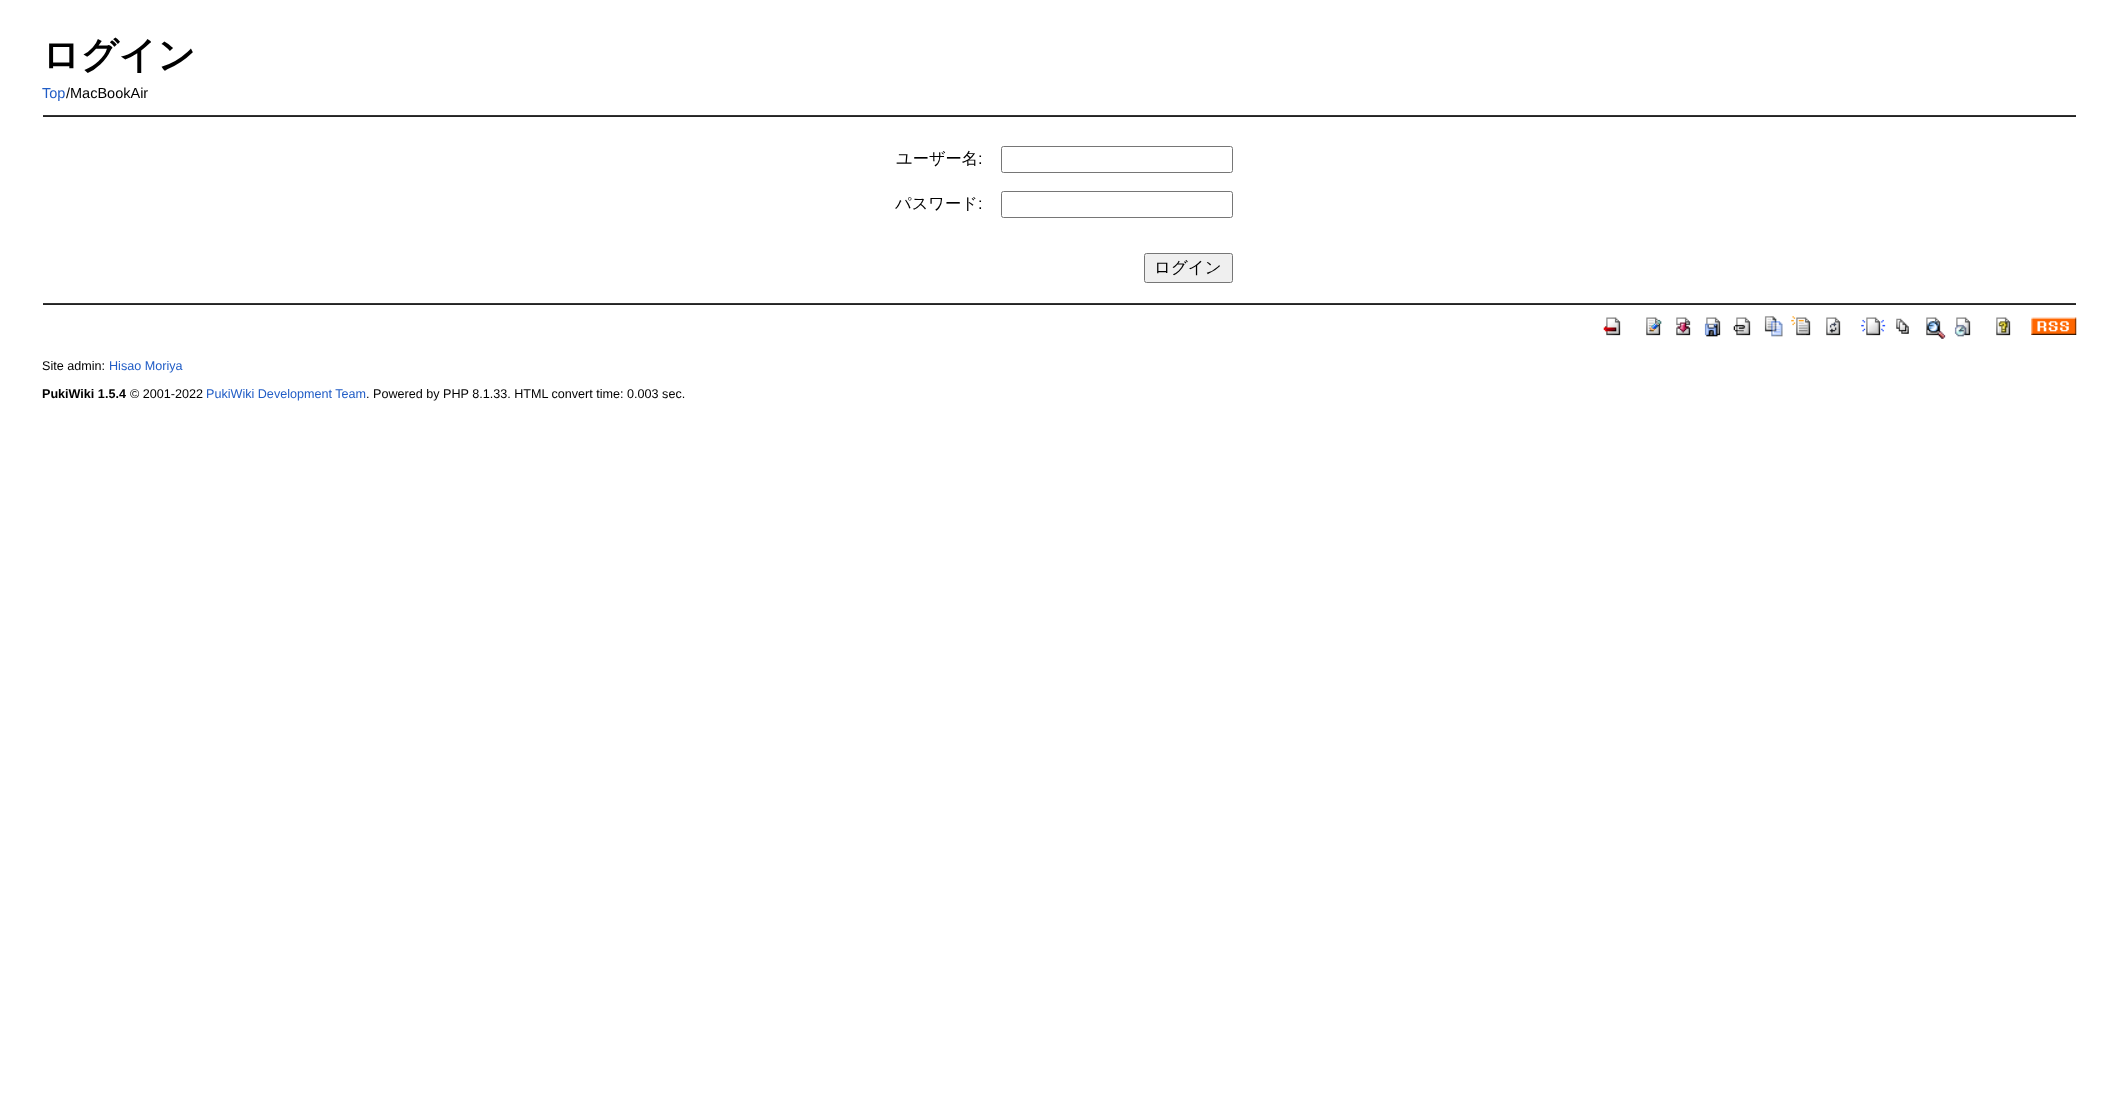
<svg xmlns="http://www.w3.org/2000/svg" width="2118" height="1097">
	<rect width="100%" height="100%" fill="#FFFFFF" />
	<text x="42" y="68" font-family="WenQuanYi Zen Hei" font-size="37.5" font-weight="700" fill="#000000">ログイン</text>
	<text x="42" y="98" font-family="Liberation Sans" font-size="14.5" fill="#215DC6">Top</text>
	<text x="66" y="98" font-family="Liberation Sans" font-size="14.5" fill="#000000">/MacBookAir</text>
	<rect x="43" y="115" width="2033" height="1" fill="#333333" />
	<rect x="43" y="116" width="2033" height="1" fill="#222222" />
	<text x="896" y="164" font-family="WenQuanYi Zen Hei" font-size="16.25" font-weight="500" fill="#000000">ユーザー名</text>
	<text x="978" y="164" font-family="Liberation Sans" font-size="16.25" fill="#000000">:</text>
	<rect x="1001.5" y="146.5" width="231" height="26" rx="2" fill="none" stroke="#767676" />
	<text x="895" y="209" font-family="WenQuanYi Zen Hei" font-size="16.25" font-weight="500" fill="#000000">パスワード</text>
	<text x="978" y="209" font-family="Liberation Sans" font-size="16.25" fill="#000000">:</text>
	<rect x="1001.5" y="191.5" width="231" height="26" rx="2" fill="none" stroke="#767676" />
	<rect x="1144.5" y="253.5" width="88" height="29" rx="2" fill="#EFEFEF" stroke="#767676" />
	<text x="1154" y="273" font-family="WenQuanYi Zen Hei" font-size="16.5" font-weight="500" fill="#000000">ログイン</text>
	<rect x="43" y="303" width="2033" height="1" fill="#333333" />
	<rect x="43" y="304" width="2033" height="1" fill="#222222" />
	<image x="1603" y="317" width="18" height="19" href="assets/img1.png" />
	<image x="1646" y="317" width="16" height="19" href="assets/img2.png" />
	<image x="1676" y="317" width="15" height="19" href="assets/img3.png" />
	<image x="1704" y="317" width="17" height="20" href="assets/img4.png" />
	<image x="1733" y="317" width="18" height="19" href="assets/img5.png" />
	<image x="1764" y="316" width="19" height="21" href="assets/img6.png" />
	<image x="1791" y="316" width="20" height="20" href="assets/img7.png" />
	<image x="1826" y="317" width="15" height="19" href="assets/img8.png" />
	<image x="1861" y="317" width="25" height="19" href="assets/img9.png" />
	<image x="1896" y="318" width="13" height="16" href="assets/img10.png" />
	<image x="1926" y="317" width="20" height="22" href="assets/img11.png" />
	<image x="1954" y="317" width="17" height="20" href="assets/img12.png" />
	<image x="1996" y="317" width="15" height="19" href="assets/img13.png" />
	<image x="2031" y="317" width="46" height="18" href="assets/img14.png" />
	<text x="42" y="370" font-family="Liberation Sans" font-size="12.6" fill="#000000">Site admin:</text>
	<text x="109" y="370" font-family="Liberation Sans" font-size="12.6" fill="#215DC6">Hisao Moriya</text>
	<text x="42" y="398" font-family="Liberation Sans" font-size="12.6" font-weight="700" fill="#000000">PukiWiki 1.5.4</text>
	<text x="130" y="398" font-family="Liberation Sans" font-size="12.6" fill="#000000">© 2001-2022</text>
	<text x="206" y="398" font-family="Liberation Sans" font-size="12.6" fill="#215DC6">PukiWiki Development Team</text>
	<text x="366" y="398" font-family="Liberation Sans" font-size="12.6" fill="#000000">. Powered by PHP 8.1.33. HTML convert time: 0.003 sec.</text>
</svg>
